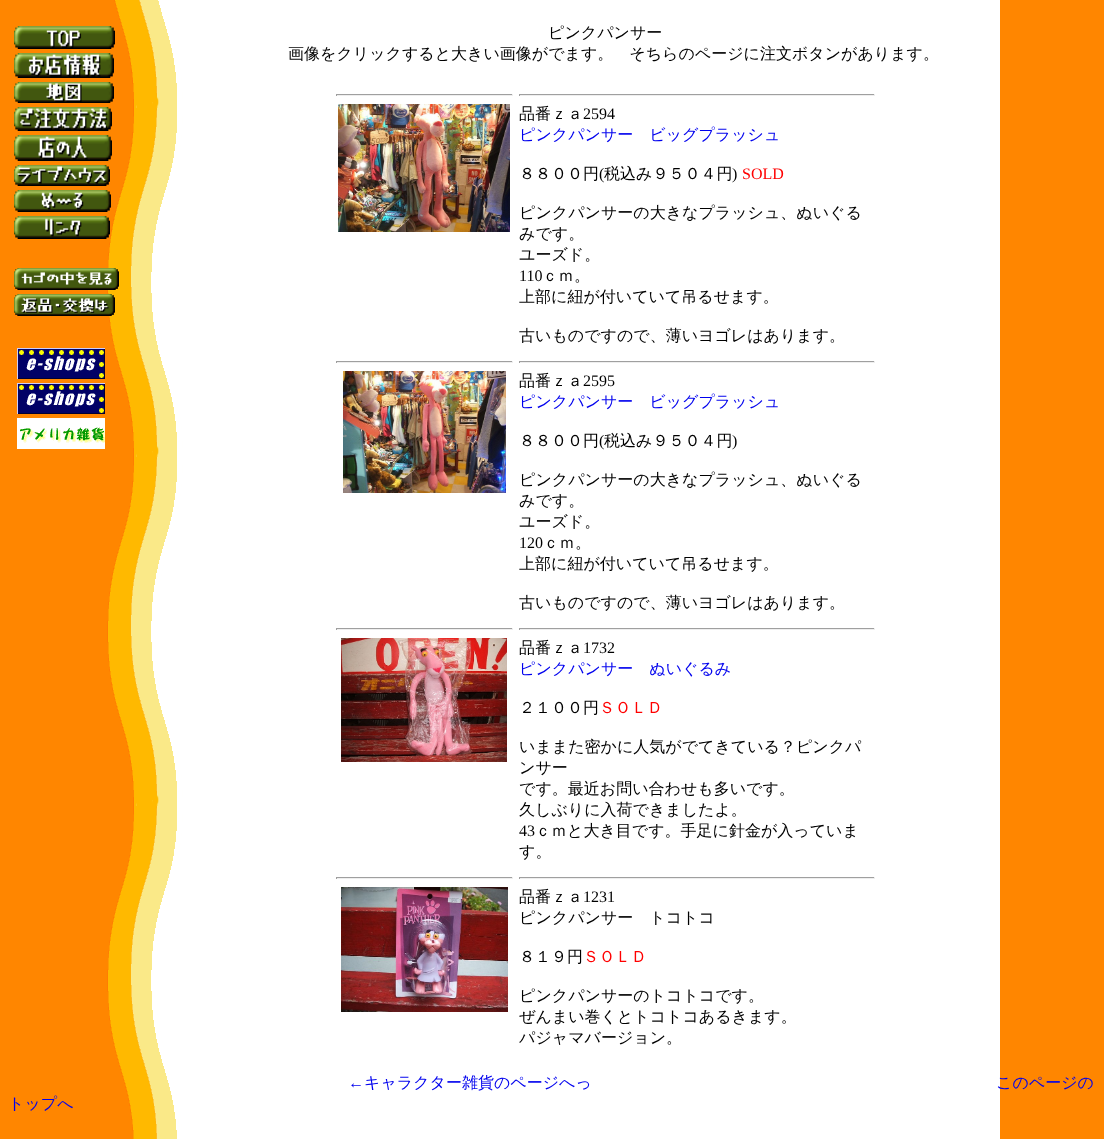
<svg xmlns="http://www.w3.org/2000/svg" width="1104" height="1139">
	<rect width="100%" height="100%" fill="#FFFFFF" />
	<image x="0" y="0" width="1104" height="1139" href="assets/img1.png" />
	<image x="14" y="26" width="101" height="23" href="assets/img2.png" />
	<image x="14" y="53" width="100" height="25" href="assets/img3.png" />
	<image x="14" y="82" width="100" height="21" href="assets/img4.png" />
	<image x="14" y="107" width="98" height="24" href="assets/img5.png" />
	<image x="14" y="135" width="98" height="26" href="assets/img6.png" />
	<image x="14" y="165" width="96" height="21" href="assets/img7.png" />
	<image x="14" y="190" width="97" height="22" href="assets/img8.png" />
	<image x="14" y="216" width="96" height="23" href="assets/img9.png" />
	<image x="14" y="268" width="105" height="22" href="assets/img10.png" />
	<image x="14" y="294" width="101" height="22" href="assets/img11.png" />
	<image x="17" y="348" width="88" height="31" href="assets/img12.png" />
	<image x="17" y="383" width="88" height="31" href="assets/img13.png" />
	<image x="17" y="418" width="88" height="31" href="assets/img14.png" />
	<g font-family="WenQuanYi Zen Hei" font-size="16" font-weight="500" fill="#000000">
		<text x="548" y="38">ピンクパンサー</text>
		<text x="288" y="59">画像をクリックすると大きい画像がでます。　そちらのページに注文ボタンがあります。</text>
	</g>
	<rect x="336" y="94" width="177" height="1" fill="#9F9F9F" />
	<rect x="512" y="94" width="1" height="2" fill="#EEEEEE" />
	<rect x="336" y="95" width="177" height="1" fill="#EEEEEE" />
	<rect x="336" y="94" width="1" height="2" fill="#9F9F9F" />
	<image x="338" y="104" width="172" height="128" href="assets/img15.png" />
	<rect x="519" y="94" width="356" height="1" fill="#9F9F9F" />
	<rect x="874" y="94" width="1" height="2" fill="#EEEEEE" />
	<rect x="519" y="95" width="356" height="1" fill="#EEEEEE" />
	<rect x="519" y="94" width="1" height="2" fill="#9F9F9F" />
	<text x="519" y="119" font-family="WenQuanYi Zen Hei" font-size="16" font-weight="500" fill="#000000">品番ｚａ</text>
	<text x="583" y="119" font-family="Liberation Serif" font-size="16" fill="#000000">2594</text>
	<text x="519" y="140" font-family="WenQuanYi Zen Hei" font-size="16" font-weight="500" fill="#0000EE">ピンクパンサー　ビッグプラッシュ</text>
	<text x="519" y="179" font-family="WenQuanYi Zen Hei" font-size="16" font-weight="500" fill="#000000">８８００円</text>
	<text x="599" y="179" font-family="Liberation Serif" font-size="16" fill="#000000">(</text>
	<text x="604" y="179" font-family="WenQuanYi Zen Hei" font-size="16" font-weight="500" fill="#000000">税込み９５０４円</text>
	<text x="732" y="179" font-family="Liberation Serif" font-size="16" fill="#000000">)</text>
	<text x="742" y="179" font-family="Liberation Serif" font-size="16" fill="#FF0000">SOLD</text>
	<g font-family="WenQuanYi Zen Hei" font-size="16" font-weight="500" fill="#000000">
		<text x="519" y="218">ピンクパンサーの大きなプラッシュ、ぬいぐる</text>
		<text x="519" y="239">みです。</text>
		<text x="519" y="260">ユーズド。</text>
	</g>
	<text x="519" y="281" font-family="Liberation Serif" font-size="16" fill="#000000">110</text>
	<g font-family="WenQuanYi Zen Hei" font-size="16" font-weight="500" fill="#000000">
		<text x="542" y="281">ｃｍ。</text>
		<text x="519" y="302">上部に紐が付いていて吊るせます。</text>
		<text x="519" y="341">古いものですので、薄いヨゴレはあります。</text>
	</g>
	<rect x="336" y="361" width="177" height="1" fill="#9F9F9F" />
	<rect x="512" y="361" width="1" height="2" fill="#EEEEEE" />
	<rect x="336" y="362" width="177" height="1" fill="#EEEEEE" />
	<rect x="336" y="361" width="1" height="2" fill="#9F9F9F" />
	<image x="343" y="371" width="163" height="122" href="assets/img16.png" />
	<rect x="519" y="361" width="356" height="1" fill="#9F9F9F" />
	<rect x="874" y="361" width="1" height="2" fill="#EEEEEE" />
	<rect x="519" y="362" width="356" height="1" fill="#EEEEEE" />
	<rect x="519" y="361" width="1" height="2" fill="#9F9F9F" />
	<text x="519" y="386" font-family="WenQuanYi Zen Hei" font-size="16" font-weight="500" fill="#000000">品番ｚａ</text>
	<text x="583" y="386" font-family="Liberation Serif" font-size="16" fill="#000000">2595</text>
	<text x="519" y="407" font-family="WenQuanYi Zen Hei" font-size="16" font-weight="500" fill="#0000EE">ピンクパンサー　ビッグプラッシュ</text>
	<text x="519" y="446" font-family="WenQuanYi Zen Hei" font-size="16" font-weight="500" fill="#000000">８８００円</text>
	<text x="599" y="446" font-family="Liberation Serif" font-size="16" fill="#000000">(</text>
	<text x="604" y="446" font-family="WenQuanYi Zen Hei" font-size="16" font-weight="500" fill="#000000">税込み９５０４円</text>
	<text x="732" y="446" font-family="Liberation Serif" font-size="16" fill="#000000">)</text>
	<g font-family="WenQuanYi Zen Hei" font-size="16" font-weight="500" fill="#000000">
		<text x="519" y="485">ピンクパンサーの大きなプラッシュ、ぬいぐる</text>
		<text x="519" y="506">みです。</text>
		<text x="519" y="527">ユーズド。</text>
	</g>
	<text x="519" y="548" font-family="Liberation Serif" font-size="16" fill="#000000">120</text>
	<g font-family="WenQuanYi Zen Hei" font-size="16" font-weight="500" fill="#000000">
		<text x="543" y="548">ｃｍ。</text>
		<text x="519" y="569">上部に紐が付いていて吊るせます。</text>
		<text x="519" y="608">古いものですので、薄いヨゴレはあります。</text>
	</g>
	<rect x="336" y="628" width="177" height="1" fill="#9F9F9F" />
	<rect x="512" y="628" width="1" height="2" fill="#EEEEEE" />
	<rect x="336" y="629" width="177" height="1" fill="#EEEEEE" />
	<rect x="336" y="628" width="1" height="2" fill="#9F9F9F" />
	<image x="341" y="638" width="166" height="124" href="assets/img17.png" />
	<rect x="519" y="628" width="356" height="1" fill="#9F9F9F" />
	<rect x="874" y="628" width="1" height="2" fill="#EEEEEE" />
	<rect x="519" y="629" width="356" height="1" fill="#EEEEEE" />
	<rect x="519" y="628" width="1" height="2" fill="#9F9F9F" />
	<text x="519" y="653" font-family="WenQuanYi Zen Hei" font-size="16" font-weight="500" fill="#000000">品番ｚａ</text>
	<text x="583" y="653" font-family="Liberation Serif" font-size="16" fill="#000000">1732</text>
	<text x="519" y="674" font-family="WenQuanYi Zen Hei" font-size="16" font-weight="500" fill="#0000EE">ピンクパンサー　ぬいぐるみ</text>
	<text x="519" y="713" font-family="WenQuanYi Zen Hei" font-size="16" font-weight="500" fill="#000000">２１００円</text>
	<text x="599" y="713" font-family="WenQuanYi Zen Hei" font-size="16" font-weight="500" fill="#FF0000">ＳＯＬＤ</text>
	<g font-family="WenQuanYi Zen Hei" font-size="16" font-weight="500" fill="#000000">
		<text x="519" y="752">いままた密かに人気がでてきている？ピンクパ</text>
		<text x="519" y="773">ンサー</text>
		<text x="519" y="794">です。最近お問い合わせも多いです。</text>
		<text x="519" y="815">久しぶりに入荷できましたよ。</text>
	</g>
	<text x="519" y="836" font-family="Liberation Serif" font-size="16" fill="#000000">43</text>
	<g font-family="WenQuanYi Zen Hei" font-size="16" font-weight="500" fill="#000000">
		<text x="535" y="836">ｃｍと大き目です。手足に針金が入っていま</text>
		<text x="519" y="857">す。</text>
	</g>
	<rect x="336" y="877" width="177" height="1" fill="#9F9F9F" />
	<rect x="512" y="877" width="1" height="2" fill="#EEEEEE" />
	<rect x="336" y="878" width="177" height="1" fill="#EEEEEE" />
	<rect x="336" y="877" width="1" height="2" fill="#9F9F9F" />
	<image x="341" y="887" width="167" height="125" href="assets/img18.png" />
	<rect x="519" y="877" width="356" height="1" fill="#9F9F9F" />
	<rect x="874" y="877" width="1" height="2" fill="#EEEEEE" />
	<rect x="519" y="878" width="356" height="1" fill="#EEEEEE" />
	<rect x="519" y="877" width="1" height="2" fill="#9F9F9F" />
	<text x="519" y="902" font-family="WenQuanYi Zen Hei" font-size="16" font-weight="500" fill="#000000">品番ｚａ</text>
	<text x="583" y="902" font-family="Liberation Serif" font-size="16" fill="#000000">1231</text>
	<g font-family="WenQuanYi Zen Hei" font-size="16" font-weight="500" fill="#000000">
		<text x="519" y="923">ピンクパンサー　トコトコ</text>
		<text x="519" y="962">８１９円</text>
	</g>
	<text x="583" y="962" font-family="WenQuanYi Zen Hei" font-size="16" font-weight="500" fill="#FF0000">ＳＯＬＤ</text>
	<g font-family="WenQuanYi Zen Hei" font-size="16" font-weight="500" fill="#000000">
		<text x="519" y="1001">ピンクパンサーのトコトコです。</text>
		<text x="519" y="1022">ぜんまい巻くとトコトコあるきます。</text>
		<text x="519" y="1043">パジャマバージョン。</text>
	</g>
	<text x="348" y="1088" font-family="Liberation Serif" font-size="16" fill="#0000EE">←</text>
	<g font-family="WenQuanYi Zen Hei" font-size="16" font-weight="500" fill="#0000EE">
		<text x="364" y="1088">キャラクター雑貨のページへっ</text>
		<text x="996" y="1088">このページの</text>
		<text x="8" y="1109">トップへ</text>
	</g>
</svg>
